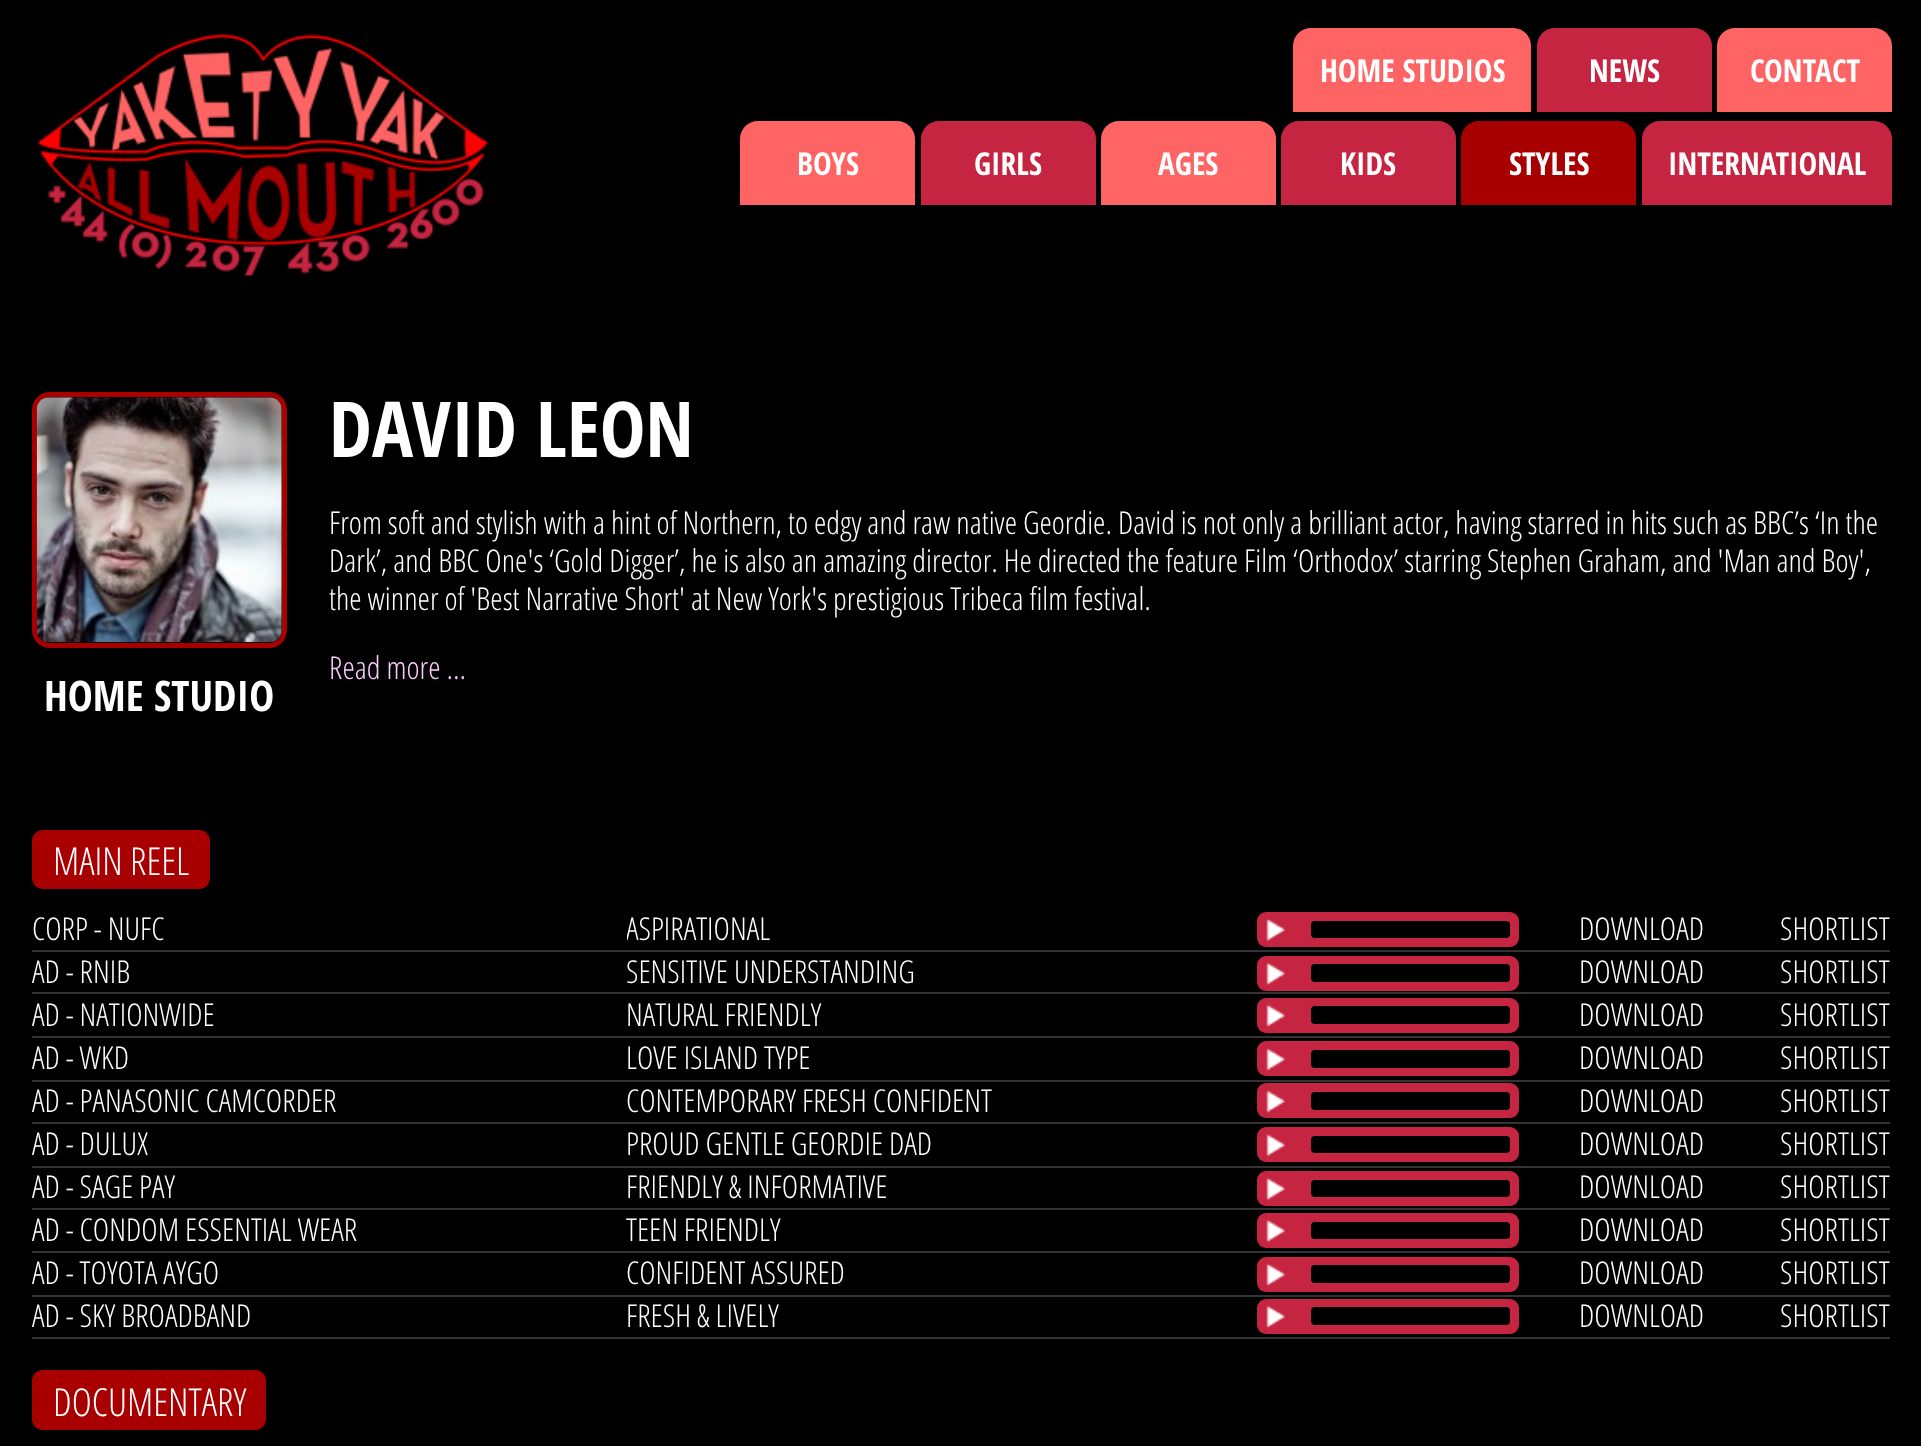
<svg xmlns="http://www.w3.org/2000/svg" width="1921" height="1446">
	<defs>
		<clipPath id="clip1"><rect x="627" y="912" width="595" height="31" /></clipPath>
	</defs>
	<rect width="100%" height="100%" fill="#000000" />
	<image x="37" y="34" width="451" height="243" href="assets/img1.png" />
	<path d="M1311 28H1513C1523 28 1531 36 1531 46V112H1293V46C1293 36 1301 28 1311 28Z" fill="#FF6464" />
	<text x="1320" y="82" font-family="Open Sans Condensed" font-size="31.5" font-weight="700" fill="#FFFFFF">HOME STUDIOS</text>
	<path d="M1555 28H1694C1704 28 1712 36 1712 46V112H1537V46C1537 36 1545 28 1555 28Z" fill="#C52541" />
	<text x="1589" y="82" font-family="Open Sans Condensed" font-size="31.5" font-weight="700" fill="#FFFFFF">NEWS</text>
	<path d="M1735 28H1874C1884 28 1892 36 1892 46V112H1717V46C1717 36 1725 28 1735 28Z" fill="#FF6464" />
	<text x="1750" y="82" font-family="Open Sans Condensed" font-size="31.5" font-weight="700" fill="#FFFFFF">CONTACT</text>
	<path d="M758 121H897C907 121 915 129 915 139V205H740V139C740 129 748 121 758 121Z" fill="#FF6464" />
	<text x="797" y="175" font-family="Open Sans Condensed" font-size="31.5" font-weight="700" fill="#FFFFFF">BOYS</text>
	<path d="M939 121H1078C1088 121 1096 129 1096 139V205H921V139C921 129 929 121 939 121Z" fill="#C52541" />
	<text x="974" y="175" font-family="Open Sans Condensed" font-size="31.5" font-weight="700" fill="#FFFFFF">GIRLS</text>
	<path d="M1119 121H1258C1268 121 1276 129 1276 139V205H1101V139C1101 129 1109 121 1119 121Z" fill="#FF6464" />
	<text x="1158" y="175" font-family="Open Sans Condensed" font-size="31.5" font-weight="700" fill="#FFFFFF">AGES</text>
	<path d="M1299 121H1438C1448 121 1456 129 1456 139V205H1281V139C1281 129 1289 121 1299 121Z" fill="#C52541" />
	<text x="1340" y="175" font-family="Open Sans Condensed" font-size="31.5" font-weight="700" fill="#FFFFFF">KIDS</text>
	<path d="M1479 121H1618C1628 121 1636 129 1636 139V205H1461V139C1461 129 1469 121 1479 121Z" fill="#A80000" />
	<text x="1509" y="175" font-family="Open Sans Condensed" font-size="31.5" font-weight="700" fill="#FFFFFF">STYLES</text>
	<path d="M1660 121H1874C1884 121 1892 129 1892 139V205H1642V139C1642 129 1650 121 1660 121Z" fill="#C52541" />
	<text x="1668" y="175" font-family="Open Sans Condensed" font-size="31.5" font-weight="700" fill="#FFFFFF">INTERNATIONAL</text>
	<text x="329" y="457" font-family="Open Sans Condensed" font-size="77" font-weight="700" fill="#FFFFFF">DAVID LEON</text>
	<g font-family="Open Sans Condensed" font-size="31.5" font-weight="300" fill="#FFFFFF">
		<text x="329" y="534">From soft and stylish with a hint of Northern, to edgy and raw native Geordie. David is not only a brilliant actor, having starred in hits such as BBC’s ‘In the</text>
		<text x="329" y="572">Dark’, and BBC One's ‘Gold Digger’, he is also an amazing director. He directed the feature Film ‘Orthodox’ starring Stephen Graham, and 'Man and Boy',</text>
		<text x="329" y="610">the winner of 'Best Narrative Short' at New York's prestigious Tribeca film festival.</text>
	</g>
	<text x="329" y="679" font-family="Open Sans Condensed" font-size="31.5" font-weight="300" fill="#FFCCFF">Read more …</text>
	<rect x="34.5" y="394.5" width="250" height="251" rx="15.5" fill="none" stroke="#A80000" stroke-width="5" />
	<image x="36" y="397" width="246" height="246" href="assets/img2.png" />
	<text x="44" y="711" font-family="Open Sans Condensed" font-size="42" font-weight="700" fill="#FFFFFF">HOME STUDIO</text>
	<rect x="32" y="830" width="178" height="59" rx="11" fill="#A80000" />
	<text x="53" y="875" font-family="Open Sans Condensed" font-size="38.5" font-weight="300" fill="#FFFFFF">MAIN REEL</text>
	<rect x="32" y="950" width="1858" height="2" fill="#333333" />
	<text x="32" y="940" font-family="Open Sans Condensed" font-size="31.5" font-weight="300" fill="#FFFFFF">CORP - NUFC</text>
	<g clip-path="url(#clip1)">
		<text x="626" y="940" font-family="Open Sans Condensed" font-size="31.5" font-weight="300" fill="#FFFFFF">ASPIRATIONAL</text>
	</g>
	<rect x="1257" y="912" width="262" height="35" rx="9" fill="#C52541" />
	<image x="1266" y="918" width="19" height="24" href="assets/img3.png" />
	<rect x="1311" y="921" width="199" height="17" rx="4" fill="#000000" />
	<g font-family="Open Sans Condensed" font-size="31.5" font-weight="300" fill="#FFFFFF">
		<text x="1579" y="940">DOWNLOAD</text>
		<text x="1780" y="940">SHORTLIST</text>
	</g>
	<rect x="32" y="992" width="1858" height="2" fill="#333333" />
	<g font-family="Open Sans Condensed" font-size="31.5" font-weight="300" fill="#FFFFFF">
		<text x="32" y="983">AD - RNIB</text>
		<text x="626" y="983">SENSITIVE UNDERSTANDING</text>
	</g>
	<rect x="1257" y="956" width="262" height="35" rx="9" fill="#C52541" />
	<image x="1266" y="962" width="19" height="24" href="assets/img4.png" />
	<rect x="1311" y="964" width="199" height="18" rx="4" fill="#000000" />
	<g font-family="Open Sans Condensed" font-size="31.5" font-weight="300" fill="#FFFFFF">
		<text x="1579" y="983">DOWNLOAD</text>
		<text x="1780" y="983">SHORTLIST</text>
	</g>
	<rect x="32" y="1036" width="1858" height="2" fill="#333333" />
	<g font-family="Open Sans Condensed" font-size="31.5" font-weight="300" fill="#FFFFFF">
		<text x="32" y="1026">AD - NATIONWIDE</text>
		<text x="626" y="1026">NATURAL FRIENDLY</text>
	</g>
	<rect x="1257" y="998" width="262" height="35" rx="9" fill="#C52541" />
	<image x="1266" y="1004" width="19" height="24" href="assets/img4.png" />
	<rect x="1311" y="1006" width="199" height="18" rx="4" fill="#000000" />
	<g font-family="Open Sans Condensed" font-size="31.5" font-weight="300" fill="#FFFFFF">
		<text x="1579" y="1026">DOWNLOAD</text>
		<text x="1780" y="1026">SHORTLIST</text>
	</g>
	<rect x="32" y="1080" width="1858" height="2" fill="#333333" />
	<g font-family="Open Sans Condensed" font-size="31.5" font-weight="300" fill="#FFFFFF">
		<text x="32" y="1069">AD - WKD</text>
		<text x="626" y="1069">LOVE ISLAND TYPE</text>
	</g>
	<rect x="1257" y="1041" width="262" height="35" rx="9" fill="#C52541" />
	<image x="1266" y="1048" width="19" height="24" href="assets/img5.png" />
	<rect x="1311" y="1050" width="199" height="18" rx="4" fill="#000000" />
	<g font-family="Open Sans Condensed" font-size="31.5" font-weight="300" fill="#FFFFFF">
		<text x="1579" y="1069">DOWNLOAD</text>
		<text x="1780" y="1069">SHORTLIST</text>
	</g>
	<rect x="32" y="1122" width="1858" height="2" fill="#333333" />
	<g font-family="Open Sans Condensed" font-size="31.5" font-weight="300" fill="#FFFFFF">
		<text x="32" y="1112">AD - PANASONIC CAMCORDER</text>
		<text x="626" y="1112">CONTEMPORARY FRESH CONFIDENT</text>
	</g>
	<rect x="1257" y="1083" width="262" height="35" rx="9" fill="#C52541" />
	<image x="1266" y="1090" width="19" height="24" href="assets/img5.png" />
	<rect x="1311" y="1092" width="199" height="18" rx="4" fill="#000000" />
	<g font-family="Open Sans Condensed" font-size="31.5" font-weight="300" fill="#FFFFFF">
		<text x="1579" y="1112">DOWNLOAD</text>
		<text x="1780" y="1112">SHORTLIST</text>
	</g>
	<rect x="32" y="1166" width="1858" height="2" fill="#333333" />
	<g font-family="Open Sans Condensed" font-size="31.5" font-weight="300" fill="#FFFFFF">
		<text x="32" y="1155">AD - DULUX</text>
		<text x="626" y="1155">PROUD GENTLE GEORDIE DAD</text>
	</g>
	<rect x="1257" y="1127" width="262" height="35" rx="9" fill="#C52541" />
	<image x="1266" y="1133" width="19" height="24" href="assets/img6.png" />
	<rect x="1311" y="1136" width="199" height="17" rx="4" fill="#000000" />
	<g font-family="Open Sans Condensed" font-size="31.5" font-weight="300" fill="#FFFFFF">
		<text x="1579" y="1155">DOWNLOAD</text>
		<text x="1780" y="1155">SHORTLIST</text>
	</g>
	<rect x="32" y="1208" width="1858" height="2" fill="#333333" />
	<g font-family="Open Sans Condensed" font-size="31.5" font-weight="300" fill="#FFFFFF">
		<text x="32" y="1198">AD - SAGE PAY</text>
		<text x="626" y="1198">FRIENDLY &amp; INFORMATIVE</text>
	</g>
	<rect x="1257" y="1171" width="262" height="35" rx="9" fill="#C52541" />
	<image x="1266" y="1177" width="19" height="24" href="assets/img3.png" />
	<rect x="1311" y="1180" width="199" height="17" rx="4" fill="#000000" />
	<g font-family="Open Sans Condensed" font-size="31.5" font-weight="300" fill="#FFFFFF">
		<text x="1579" y="1198">DOWNLOAD</text>
		<text x="1780" y="1198">SHORTLIST</text>
	</g>
	<rect x="32" y="1251" width="1858" height="2" fill="#333333" />
	<g font-family="Open Sans Condensed" font-size="31.5" font-weight="300" fill="#FFFFFF">
		<text x="32" y="1241">AD - CONDOM ESSENTIAL WEAR</text>
		<text x="626" y="1241">TEEN FRIENDLY</text>
	</g>
	<rect x="1257" y="1213" width="262" height="35" rx="9" fill="#C52541" />
	<image x="1266" y="1219" width="19" height="24" href="assets/img3.png" />
	<rect x="1311" y="1222" width="199" height="17" rx="4" fill="#000000" />
	<g font-family="Open Sans Condensed" font-size="31.5" font-weight="300" fill="#FFFFFF">
		<text x="1579" y="1241">DOWNLOAD</text>
		<text x="1780" y="1241">SHORTLIST</text>
	</g>
	<rect x="32" y="1295" width="1858" height="2" fill="#333333" />
	<g font-family="Open Sans Condensed" font-size="31.5" font-weight="300" fill="#FFFFFF">
		<text x="32" y="1284">AD - TOYOTA AYGO</text>
		<text x="626" y="1284">CONFIDENT ASSURED</text>
	</g>
	<rect x="1257" y="1257" width="262" height="35" rx="9" fill="#C52541" />
	<image x="1266" y="1263" width="19" height="24" href="assets/img4.png" />
	<rect x="1311" y="1265" width="199" height="18" rx="4" fill="#000000" />
	<g font-family="Open Sans Condensed" font-size="31.5" font-weight="300" fill="#FFFFFF">
		<text x="1579" y="1284">DOWNLOAD</text>
		<text x="1780" y="1284">SHORTLIST</text>
	</g>
	<rect x="32" y="1337" width="1858" height="2" fill="#333333" />
	<g font-family="Open Sans Condensed" font-size="31.5" font-weight="300" fill="#FFFFFF">
		<text x="32" y="1327">AD - SKY BROADBAND</text>
		<text x="626" y="1327">FRESH &amp; LIVELY</text>
	</g>
	<rect x="1257" y="1299" width="262" height="35" rx="9" fill="#C52541" />
	<image x="1266" y="1305" width="19" height="24" href="assets/img4.png" />
	<rect x="1311" y="1307" width="199" height="18" rx="4" fill="#000000" />
	<g font-family="Open Sans Condensed" font-size="31.5" font-weight="300" fill="#FFFFFF">
		<text x="1579" y="1327">DOWNLOAD</text>
		<text x="1780" y="1327">SHORTLIST</text>
	</g>
	<rect x="32" y="1370" width="234" height="60" rx="11" fill="#A80000" />
	<text x="53" y="1416" font-family="Open Sans Condensed" font-size="38.5" font-weight="300" fill="#FFFFFF">DOCUMENTARY</text>
</svg>
